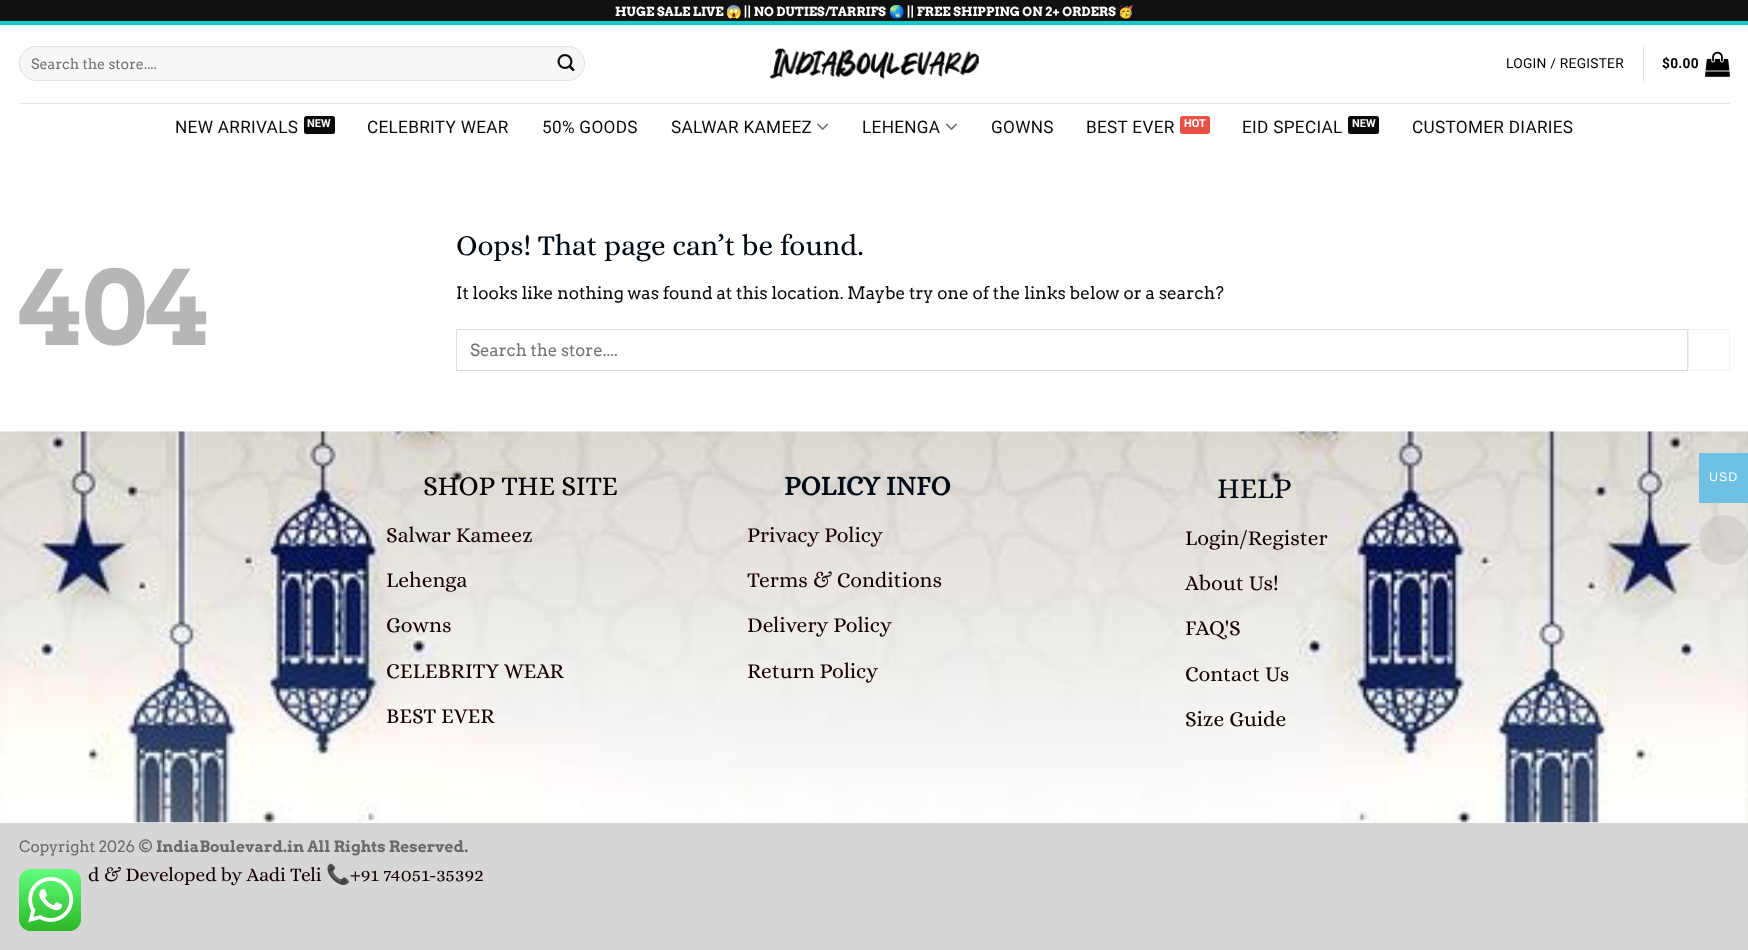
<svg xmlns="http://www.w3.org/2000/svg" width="1748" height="950">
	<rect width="100%" height="100%" fill="#D6D6D6" />
	<rect x="0" y="0" width="1748" height="21" fill="#111111" />
	<text x="615" y="16" font-family="Arvo" font-size="12.5" font-weight="700" fill="#FFFFFF">HUGE SALE LIVE</text>
	<text x="726" y="16" font-family="Noto Color Emoji" font-size="12.5" font-weight="700" fill="#FFFFFF">😱</text>
	<text x="744" y="16" font-family="Arvo" font-size="12.5" font-weight="700" fill="#FFFFFF">|| NO DUTIES/TARRIFS</text>
	<text x="889" y="16" font-family="Noto Color Emoji" font-size="12.5" font-weight="700" fill="#FFFFFF">🌏</text>
	<text x="907" y="16" font-family="Arvo" font-size="12.5" font-weight="700" fill="#FFFFFF">|| FREE SHIPPING ON 2+ ORDERS</text>
	<text x="1118" y="16" font-family="Noto Color Emoji" font-size="12.5" font-weight="700" fill="#FFFFFF">🥳</text>
	<rect x="0" y="25" width="1748" height="798" fill="#FFFFFF" />
	<rect x="0" y="21" width="1748" height="4" fill="#02CECB" />
	<rect x="19" y="46" width="566" height="35" rx="17.5" fill="#F7F7F7" />
	<rect x="19.5" y="46.5" width="565" height="34" rx="17" fill="none" stroke="#000000" stroke-opacity="0.09" />
	<text x="31" y="69" font-family="Arvo" font-size="14.25" fill="#757575">Search the store....</text>
	<image x="557" y="54" width="18" height="17" href="assets/img1.png" />
	<image x="770" y="48" width="209" height="31" href="assets/img2.png" />
	<text x="1506" y="68" font-family="Roboto" font-size="13.75" letter-spacing="0.25" fill="#000000">LOGIN / REGISTER</text>
	<rect x="1643" y="45" width="1" height="38" fill="#E6E6E6" />
	<text x="1662" y="68" font-family="Roboto" font-size="13.75" font-weight="700" letter-spacing="0.25" fill="#000000">$0.00</text>
	<image x="1705" y="51" width="25" height="26" href="assets/img3.png" />
	<rect x="19" y="103" width="1711" height="1" fill="#E7E7E7" />
	<text x="175" y="133" font-family="Roboto" font-size="17.2" letter-spacing="0.3" fill="#0A0A0A">NEW ARRIVALS</text>
	<rect x="304" y="116" width="31" height="18" rx="2.5" fill="#0A0A0A" />
	<text x="307" y="127" font-family="Roboto" font-size="11" font-weight="700" fill="#FFFFFF">NEW</text>
	<g font-family="Roboto" font-size="17.2" letter-spacing="0.3" fill="#0A0A0A">
		<text x="367" y="133">CELEBRITY WEAR</text>
		<text x="542" y="133">50% GOODS</text>
		<text x="671" y="133">SALWAR KAMEEZ</text>
	</g>
	<image x="817" y="123" width="12" height="7" href="assets/img4.png" />
	<text x="862" y="133" font-family="Roboto" font-size="17.2" letter-spacing="0.3" fill="#0A0A0A">LEHENGA</text>
	<image x="945" y="123" width="12" height="7" href="assets/img5.png" />
	<g font-family="Roboto" font-size="17.2" letter-spacing="0.3" fill="#0A0A0A">
		<text x="991" y="133">GOWNS</text>
		<text x="1086" y="133">BEST EVER</text>
	</g>
	<rect x="1180" y="116" width="30" height="18" rx="2.5" fill="#E95144" />
	<text x="1184" y="127" font-family="Roboto" font-size="11" font-weight="700" fill="#FFFFFF">HOT</text>
	<text x="1242" y="133" font-family="Roboto" font-size="17.2" letter-spacing="0.3" fill="#0A0A0A">EID SPECIAL</text>
	<rect x="1348" y="116" width="31" height="18" rx="2.5" fill="#0A0A0A" />
	<text x="1352" y="127" font-family="Roboto" font-size="11" font-weight="700" fill="#FFFFFF">NEW</text>
	<text x="1412" y="133" font-family="Roboto" font-size="17.2" letter-spacing="0.3" fill="#0A0A0A">CUSTOMER DIARIES</text>
	<text x="19" y="345" font-family="Arvo" font-size="103" font-weight="700" fill="#B6B6B6">404</text>
	<text x="456" y="255" font-family="Alice" font-size="29.25" fill="#000A14">Oops! That page can’t be found.</text>
	<text x="456" y="299" font-family="Arvo" font-size="17.2" fill="#0A0A0A">It looks like nothing was found at this location. Maybe try one of the links below or a search?</text>
	<rect x="456.5" y="329.5" width="1231" height="41" fill="none" stroke="#DDDDDD" />
	<text x="470" y="356" font-family="Arvo" font-size="16.75" fill="#757575">Search the store....</text>
	<rect x="1688.5" y="329.5" width="41" height="41" fill="none" stroke="#F2F2F2" />
	<image x="0" y="431" width="1748" height="392" href="assets/img6.png" />
	<text x="423" y="495" font-family="Alice" font-size="27.5" fill="#000000">SHOP THE SITE</text>
	<g font-family="Alice" font-size="21.5" fill="#140000">
		<text x="386" y="542">Salwar Kameez</text>
		<text x="386" y="587">Lehenga</text>
		<text x="386" y="632">Gowns</text>
		<text x="386" y="678">CELEBRITY WEAR</text>
		<text x="386" y="723">BEST EVER</text>
	</g>
	<text x="784" y="495" font-family="Alice" font-size="27.5" font-weight="700" fill="#000A14">POLICY INFO</text>
	<g font-family="Alice" font-size="21.5" fill="#140000">
		<text x="747" y="542">Privacy Policy</text>
		<text x="747" y="587">Terms &amp; Conditions</text>
		<text x="747" y="632">Delivery Policy</text>
		<text x="747" y="678">Return Policy</text>
	</g>
	<text x="1217" y="498" font-family="Alice" font-size="29.25" fill="#000A14">HELP</text>
	<g font-family="Alice" font-size="21.5" fill="#140000">
		<text x="1185" y="545">Login/Register</text>
		<text x="1185" y="590">About Us!</text>
		<text x="1185" y="635">FAQ'S</text>
		<text x="1185" y="681">Contact Us</text>
		<text x="1185" y="726">Size Guide</text>
	</g>
	<text x="19" y="852" font-family="Arvo" font-size="15.5" fill="#6B6B6B">Copyright 2026 ©</text>
	<text x="156" y="852" font-family="Arvo" font-size="15.5" font-weight="700" fill="#6B6B6B">IndiaBoulevard.in All Rights Reserved.</text>
	<text x="88" y="881" font-family="Alice" font-size="19.4" fill="#140000">d &amp; Developed by Aadi Teli</text>
	<text x="326" y="881" font-family="Noto Color Emoji" font-size="19.4" fill="#140000">📞</text>
	<text x="350" y="881" font-family="Alice" font-size="19.4" fill="#140000">+91 74051-35392</text>
	<rect x="1699" y="453" width="49" height="50" fill="#6EC1E4" />
	<text x="1709" y="481" font-family="Liberation Sans" font-size="12.5" letter-spacing="1" fill="#FFFFFF">USD</text>
	<circle cx="1724" cy="540" r="25" fill="#999999" fill-opacity="0.2" />
	<image x="19" y="869" width="62" height="62" href="assets/img7.png" />
</svg>
